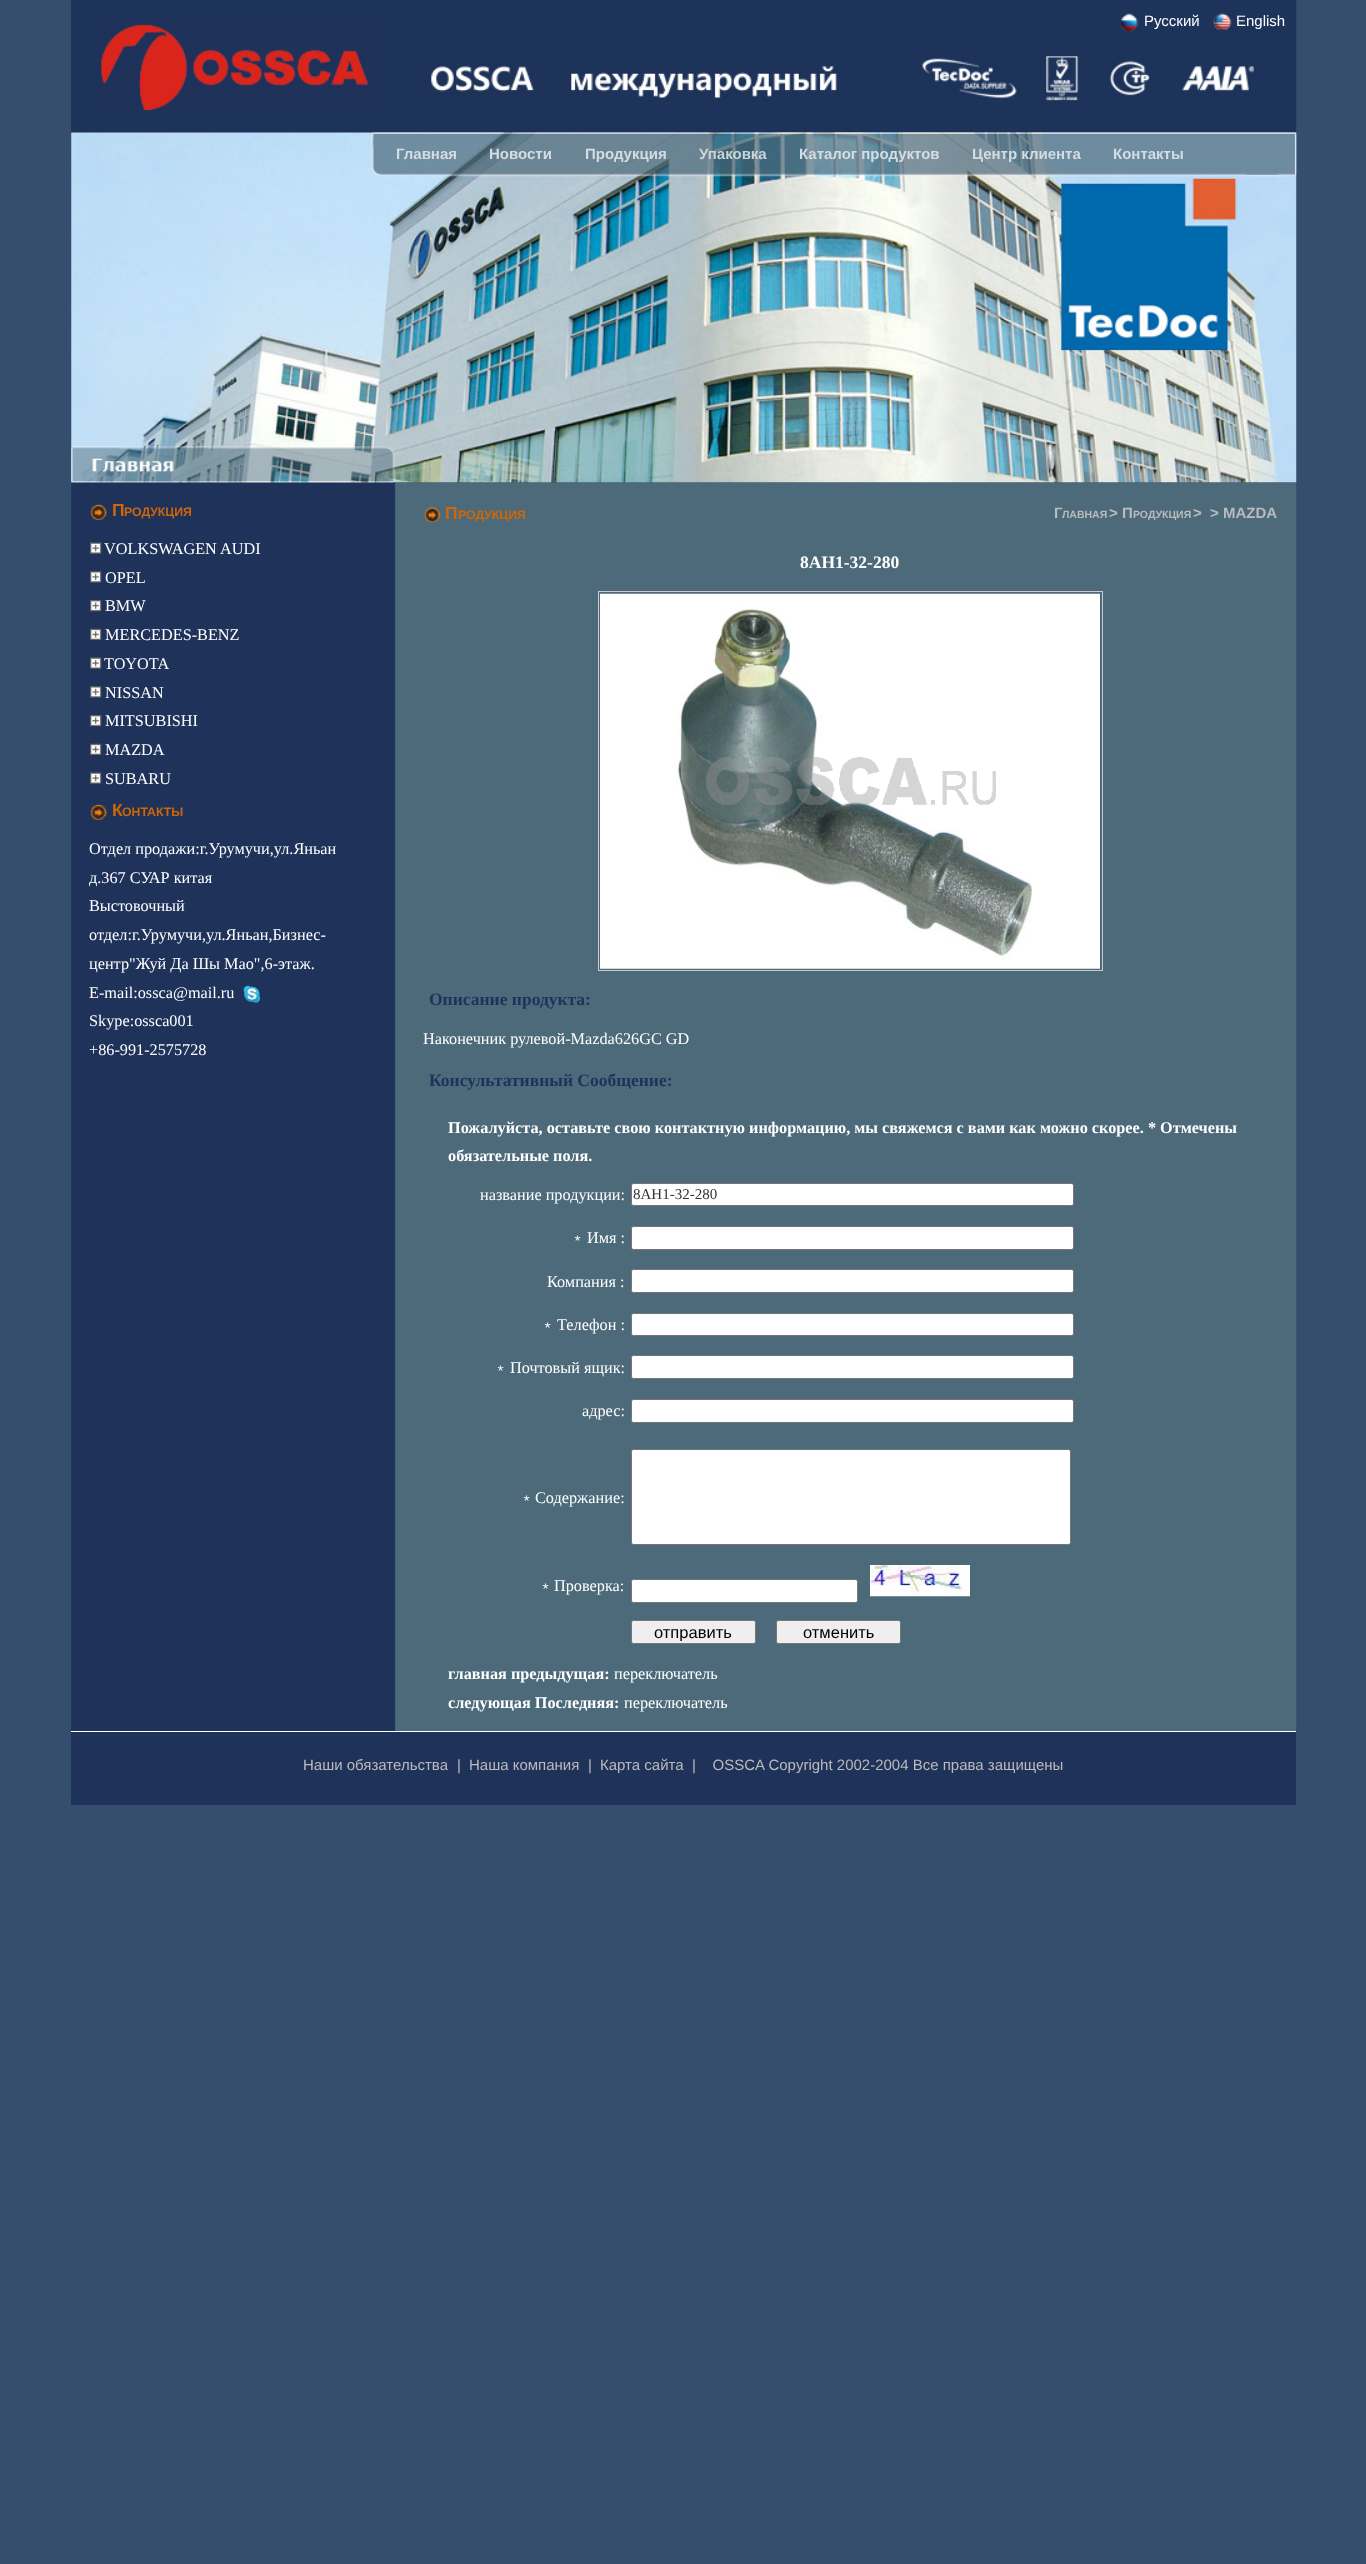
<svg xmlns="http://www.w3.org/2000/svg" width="1366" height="2564">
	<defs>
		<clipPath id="clip1"><rect x="634" y="1623" width="120" height="18" /></clipPath>
	</defs>
	<rect width="100%" height="100%" fill="#354E6D" />
	<rect x="71" y="0" width="1225" height="133" fill="#1D335A" />
	<image x="95" y="0" width="1202" height="132" href="assets/img1.png" />
	<image x="1121" y="13" width="17" height="19" href="assets/img2.png" />
	<text x="1144" y="26" font-family="Liberation Sans" font-size="15" fill="#FFFFFF">Pусский</text>
	<image x="1213" y="13" width="19" height="18" href="assets/img3.png" />
	<text x="1236" y="26" font-family="Liberation Sans" font-size="15" fill="#FFFFFF">English</text>
	<image x="71" y="132" width="1226" height="351" href="assets/img4.png" />
	<image x="371" y="132" width="926" height="45" href="assets/img5.png" />
	<g font-family="Liberation Sans" font-size="15" font-weight="700" fill="#D4DDE3">
		<text x="396" y="159">Главная</text>
		<text x="489" y="159">Новости</text>
		<text x="585" y="159">Продукция</text>
	</g>
	<text x="699" y="159" font-family="Liberation Sans" font-size="15" font-weight="700" fill="#CAD4D9">Упаковка</text>
	<g font-family="Liberation Sans" font-size="15" font-weight="700" fill="#D4DDE3">
		<text x="799" y="159">Каталог продуктов</text>
		<text x="972" y="159">Центр клиента</text>
		<text x="1113" y="159">Контакты</text>
	</g>
	<image x="71" y="482" width="1226" height="1250" href="assets/img7.png" />
	<image x="71" y="446" width="324" height="37" href="assets/img6.png" />
	<image x="90" y="504" width="17" height="16" href="assets/img8.png" />
	<text x="112" y="516" font-family="Liberation Sans" font-size="17.5" font-weight="700" fill="#CF6607">П</text>
	<text x="124" y="516" font-family="Liberation Sans" font-size="12.25" font-weight="700" fill="#CF6607">РОДУКЦИЯ</text>
	<image x="90" y="542" width="12" height="12" href="assets/img9.png" />
	<text x="104" y="554" font-family="Liberation Serif" font-size="16.25" fill="#FFFFFF">VOLKSWAGEN AUDI</text>
	<image x="90" y="571" width="12" height="12" href="assets/img10.png" />
	<text x="105" y="583" font-family="Liberation Serif" font-size="16.25" fill="#FFFFFF">OPEL</text>
	<image x="90" y="600" width="12" height="12" href="assets/img11.png" />
	<text x="105" y="611" font-family="Liberation Serif" font-size="16.25" fill="#FFFFFF">BMW</text>
	<image x="90" y="628" width="12" height="12" href="assets/img12.png" />
	<text x="105" y="640" font-family="Liberation Serif" font-size="16.25" fill="#FFFFFF">MERCEDES-BENZ</text>
	<image x="90" y="657" width="12" height="12" href="assets/img9.png" />
	<text x="104" y="669" font-family="Liberation Serif" font-size="16.25" fill="#FFFFFF">TOYOTA</text>
	<image x="90" y="686" width="12" height="12" href="assets/img10.png" />
	<text x="105" y="698" font-family="Liberation Serif" font-size="16.25" fill="#FFFFFF">NISSAN</text>
	<image x="90" y="715" width="12" height="12" href="assets/img11.png" />
	<text x="105" y="726" font-family="Liberation Serif" font-size="16.25" fill="#FFFFFF">MITSUBISHI</text>
	<image x="90" y="743" width="12" height="12" href="assets/img12.png" />
	<text x="105" y="755" font-family="Liberation Serif" font-size="16.25" fill="#FFFFFF">MAZDA</text>
	<image x="90" y="772" width="12" height="12" href="assets/img13.png" />
	<text x="105" y="784" font-family="Liberation Serif" font-size="16.25" fill="#FFFFFF">SUBARU</text>
	<image x="90" y="804" width="17" height="16" href="assets/img8.png" />
	<text x="112" y="816" font-family="Liberation Sans" font-size="17.5" font-weight="700" fill="#CF6607">К</text>
	<text x="122" y="816" font-family="Liberation Sans" font-size="12.25" font-weight="700" fill="#CF6607">ОНТАКТЫ</text>
	<g font-family="Liberation Serif" font-size="16.25" fill="#FFFFFF">
		<text x="89" y="854">Отдел продажи:г.Урумучи,ул.Яньан</text>
		<text x="89" y="883">д.367 СУАР китая</text>
		<text x="89" y="911">Выстовочный</text>
		<text x="89" y="940">отдел:г.Урумучи,ул.Яньан,Бизнес-</text>
		<text x="89" y="969">центр"Жуй Да Шы Мао",6-этаж.</text>
		<text x="89" y="998">E-mail:ossca@mail.ru</text>
	</g>
	<image x="243" y="985" width="18" height="18" href="assets/img14.png" />
	<g font-family="Liberation Serif" font-size="16.25" fill="#FFFFFF">
		<text x="89" y="1026">Skype:ossca001</text>
		<text x="89" y="1055">+86-991-2575728</text>
	</g>
	<image x="423" y="506" width="18" height="17" href="assets/img15.png" />
	<text x="445" y="519" font-family="Liberation Sans" font-size="17.5" font-weight="700" fill="#CF6607">П</text>
	<text x="458" y="519" font-family="Liberation Sans" font-size="12.25" font-weight="700" fill="#CF6607">РОДУКЦИЯ</text>
	<text x="1054" y="518" font-family="Liberation Sans" font-size="15" font-weight="700" fill="#BBBBBB">Г</text>
	<text x="1062" y="518" font-family="Liberation Sans" font-size="10.5" font-weight="700" fill="#BBBBBB">ЛАВНАЯ</text>
	<text x="1109" y="518" font-family="Liberation Sans" font-size="15" font-weight="700" fill="#BBBBBB">&gt; П</text>
	<text x="1133" y="518" font-family="Liberation Sans" font-size="10.5" font-weight="700" fill="#BBBBBB">РОДУКЦИЯ</text>
	<text x="1193" y="518" font-family="Liberation Sans" font-size="15" font-weight="700" fill="#BBBBBB" xml:space="preserve">&gt;  &gt; MAZDA</text>
	<text x="800" y="568" font-family="Liberation Serif" font-size="17.5" font-weight="700" fill="#FFFFFF">8AH1-32-280</text>
	<rect x="598.5" y="591.5" width="504" height="379" fill="none" stroke="#CCCCCC" />
	<image x="600" y="593" width="500" height="376" href="assets/img16.png" />
	<text x="429" y="1005" font-family="Liberation Serif" font-size="17.5" font-weight="700" fill="#1F325A">Описание продукта:</text>
	<text x="423" y="1044" font-family="Liberation Serif" font-size="16.25" fill="#FFFFFF">Наконечник рулевой-Mazda626GC GD</text>
	<text x="429" y="1086" font-family="Liberation Serif" font-size="17.5" font-weight="700" fill="#1F325A">Консультативный Сообщение:</text>
	<g font-family="Liberation Serif" font-size="16.25" font-weight="700" fill="#FFFFFF">
		<text x="448" y="1133">Пожалуйста, оставьте свою контактную информацию, мы свяжемся с вами как можно скорее. * Отмечены</text>
		<text x="448" y="1161">обязательные поля.</text>
	</g>
	<text x="480" y="1200" font-family="Liberation Serif" font-size="16.25" fill="#FFFFFF">название продукции:</text>
	<rect x="631.5" y="1183.5" width="442" height="22" rx="2" fill="#FFFFFF" stroke="#767676" />
	<text x="633" y="1199" font-family="Liberation Serif" font-size="15" fill="#333333">8AH1-32-280</text>
	<text x="570" y="1243" font-family="WenQuanYi Zen Hei" font-size="16.25" font-weight="500" fill="#FFFFFF">﹡</text>
	<text x="587" y="1243" font-family="Liberation Serif" font-size="16.25" fill="#FFFFFF">Имя :</text>
	<rect x="631.5" y="1226.5" width="442" height="23" rx="2" fill="#FFFFFF" stroke="#767676" />
	<text x="547" y="1287" font-family="Liberation Serif" font-size="16.25" fill="#FFFFFF">Компания :</text>
	<rect x="631.5" y="1269.5" width="442" height="23" rx="2" fill="#FFFFFF" stroke="#767676" />
	<text x="540" y="1330" font-family="WenQuanYi Zen Hei" font-size="16.25" font-weight="500" fill="#FFFFFF">﹡</text>
	<text x="557" y="1330" font-family="Liberation Serif" font-size="16.25" fill="#FFFFFF">Телефон :</text>
	<rect x="631.5" y="1313.5" width="442" height="22" rx="2" fill="#FFFFFF" stroke="#767676" />
	<text x="493" y="1373" font-family="WenQuanYi Zen Hei" font-size="16.25" font-weight="500" fill="#FFFFFF">﹡</text>
	<text x="510" y="1373" font-family="Liberation Serif" font-size="16.25" fill="#FFFFFF">Почтовый ящик:</text>
	<rect x="631.5" y="1355.5" width="442" height="23" rx="2" fill="#FFFFFF" stroke="#767676" />
	<text x="582" y="1416" font-family="Liberation Serif" font-size="16.25" fill="#FFFFFF">адрес:</text>
	<rect x="631.5" y="1399.5" width="442" height="23" rx="2" fill="#FFFFFF" stroke="#767676" />
	<text x="519" y="1503" font-family="WenQuanYi Zen Hei" font-size="16.25" font-weight="500" fill="#FFFFFF">﹡</text>
	<text x="535" y="1503" font-family="Liberation Serif" font-size="16.25" fill="#FFFFFF">Содержание:</text>
	<rect x="631.5" y="1449.5" width="439" height="95" rx="2" fill="#FFFFFF" stroke="#767676" />
	<text x="538" y="1591" font-family="WenQuanYi Zen Hei" font-size="16.25" font-weight="500" fill="#FFFFFF">﹡</text>
	<text x="554" y="1591" font-family="Liberation Serif" font-size="16.25" fill="#FFFFFF">Проверка:</text>
	<rect x="631.5" y="1579.5" width="226" height="23" rx="2" fill="#FFFFFF" stroke="#767676" />
	<image x="870" y="1565" width="100" height="32" href="assets/img17.png" />
	<rect x="631.5" y="1620.5" width="124" height="23" rx="2" fill="#EFEFEF" stroke="#767676" />
	<g clip-path="url(#clip1)">
		<text x="654" y="1638" font-family="Liberation Sans" font-size="16.5" fill="#000000">отправить</text>
	</g>
	<rect x="776.5" y="1620.5" width="124" height="23" rx="2" fill="#EFEFEF" stroke="#767676" />
	<text x="803" y="1638" font-family="Liberation Sans" font-size="16.5" fill="#000000">отменить</text>
	<text x="448" y="1679" font-family="Liberation Serif" font-size="16.25" font-weight="700" fill="#FFFFFF">главная предыдущая:</text>
	<text x="614" y="1679" font-family="Liberation Serif" font-size="16.25" fill="#FFFFFF">переключатель</text>
	<text x="448" y="1708" font-family="Liberation Serif" font-size="16.25" font-weight="700" fill="#FFFFFF">следующая Последняя:</text>
	<text x="624" y="1708" font-family="Liberation Serif" font-size="16.25" fill="#FFFFFF">переключатель</text>
	<rect x="71" y="1732" width="1225" height="73" fill="#1F325A" />
	<rect x="71" y="1731" width="1225" height="1" fill="#FFFFFF" />
	<g font-family="Liberation Sans" font-size="15" fill="#BBBBBB">
		<text x="303" y="1770">Наши обязательства</text>
		<text x="457" y="1770">|</text>
		<text x="469" y="1770">Наша компания</text>
		<text x="588" y="1770">|</text>
		<text x="600" y="1770">Карта сайта</text>
		<text x="692" y="1770" xml:space="preserve">|    OSSCA Copyright 2002-2004 Все права защищены</text>
	</g>
</svg>
